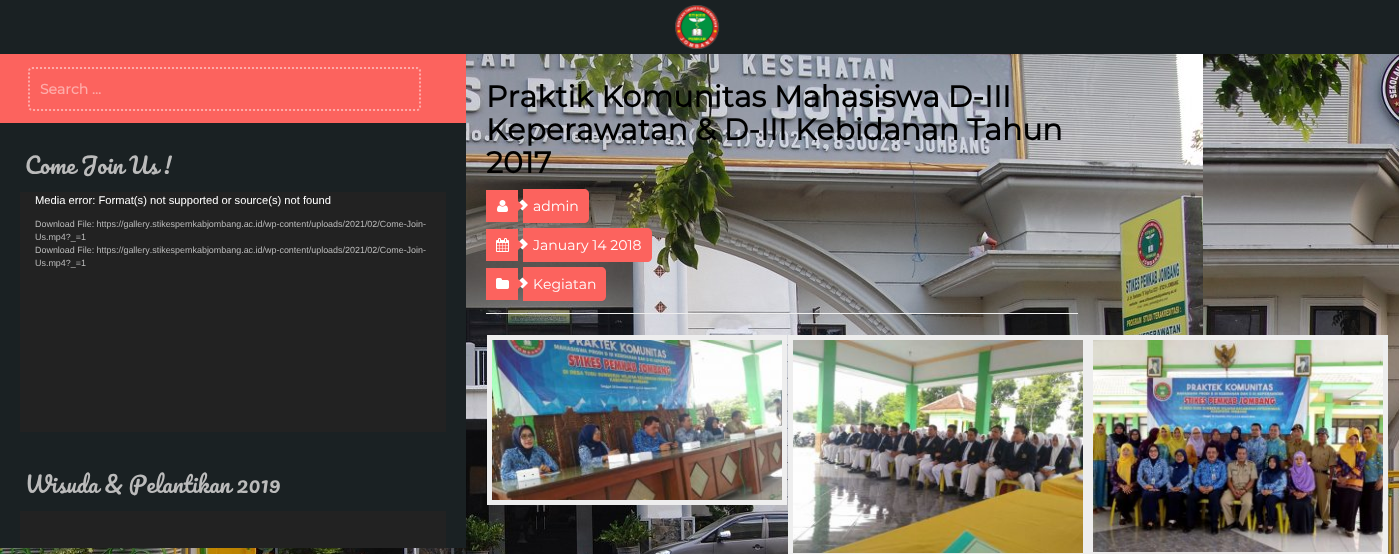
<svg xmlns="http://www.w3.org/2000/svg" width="1399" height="554">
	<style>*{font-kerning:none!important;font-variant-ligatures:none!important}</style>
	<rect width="100%" height="100%" fill="#FFFFFF" />
	<image x="0" y="54" width="1399" height="500" href="assets/img1.png" />
	<rect x="0" y="0" width="1399" height="54" fill="#1A2123" />
	<image x="675" y="5" width="45" height="44" href="assets/img2.png" />
	<rect x="0" y="54" width="466" height="69" fill="#FC635E" />
	<path d="M32 68H417C418.5 68 420 69.5 420 71V107C420 108.5 418.5 110 417 110H32C30.5 110 29 108.5 29 107V71C29 69.5 30.5 68 32 68Z" fill="none" stroke="#FDACA9" stroke-width="2" stroke-dasharray="2 2" />
	<text x="40" y="94" font-family="Montserrat" font-size="14" font-weight="700" fill="#FDACA9">Search …</text>
	<g font-family="Montserrat" font-size="30" font-weight="700" fill="#000000">
		<text x="486" y="107">Praktik Komunitas Mahasiswa D-III</text>
		<text x="486" y="140">Keperawatan &amp; D-III Kebidanan Tahun</text>
		<text x="486" y="173">2017</text>
	</g>
	<rect x="486" y="313" width="592" height="1" fill="#EEEEEE" />
	<rect x="486" y="190" width="32" height="32" fill="#FC635E" />
	<image x="497" y="200" width="11" height="12" href="assets/img3.png" />
	<path d="M523 189H584C587 189 589 191 589 194V218C589 221 587 223 584 223H523Z" fill="#FC635E" />
	<rect x="486" y="229" width="32" height="32" fill="#FC635E" />
	<path d="M523 228H647C650 228 652 230 652 233V257C652 260 650 262 647 262H523Z" fill="#FC635E" />
	<path d="M522.5 199.5L528 205L522.5 210.5L516.5 205ZM522.5 238.5L528 244L522.5 249.5L516.5 244Z" fill="#FFFFFF" />
	<path d="M517.5 200.5L523 206L517.5 211.5L511.5 206ZM517.5 239.5L523 245L517.5 250.5L511.5 245Z" fill="#FC635E" />
	<text x="533" y="211" font-family="Montserrat" font-size="14" font-weight="100" fill="#FFFFFF">admin</text>
	<image x="496" y="238" width="13" height="14" href="assets/img4.png" />
	<text x="533" y="250" font-family="Montserrat" font-size="14" font-weight="100" fill="#FFFFFF">January 14 2018</text>
	<rect x="486" y="268" width="32" height="32" fill="#FC635E" />
	<image x="496" y="278" width="13" height="11" href="assets/img5.png" />
	<path d="M523 267H601C604 267 606 269 606 272V296C606 299 604 301 601 301H523Z" fill="#FC635E" />
	<path d="M522.5 277.5L528 283L522.5 288.5L516.5 283Z" fill="#FFFFFF" />
	<path d="M517.5 278.5L523 284L517.5 289.5L511.5 284Z" fill="#FC635E" />
	<text x="533" y="289" font-family="Montserrat" font-size="14" font-weight="100" fill="#FFFFFF">Kegiatan</text>
	<rect x="489.5" y="337.5" width="295" height="165" fill="none" stroke="#EEEEEE" stroke-width="5" />
	<image x="492" y="340" width="290" height="160" href="assets/img6.png" />
	<rect x="790.5" y="337.5" width="295" height="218" fill="none" stroke="#EEEEEE" stroke-width="5" />
	<image x="793" y="340" width="290" height="213" href="assets/img7.png" />
	<rect x="1090.5" y="337.5" width="295" height="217" fill="none" stroke="#EEEEEE" stroke-width="5" />
	<image x="1093" y="340" width="290" height="212" href="assets/img8.png" />
	<rect x="0" y="123" width="466" height="425" fill="#1A2123" />
	<text x="25" y="174" font-family="Pacifico" font-size="22" fill="#BBBBBB">Come Join Us !</text>
	<rect x="20" y="192" width="426" height="240" fill="#222222" />
	<text x="35" y="204" font-family="Liberation Sans" font-size="11.2" fill="#FFFFFF">Media error: Format(s) not supported or source(s) not found</text>
	<g font-family="Liberation Sans" font-size="8.95" fill="#BBBBBB">
		<text x="35" y="227">Download File: https://gallery.stikespemkabjombang.ac.id/wp-content/uploads/2021/02/Come-Join-</text>
		<text x="35" y="240">Us.mp4?_=1</text>
		<text x="35" y="253">Download File: https://gallery.stikespemkabjombang.ac.id/wp-content/uploads/2021/02/Come-Join-</text>
		<text x="35" y="266">Us.mp4?_=1</text>
	</g>
	<text x="25" y="493" font-family="Pacifico" font-size="22" fill="#BBBBBB">Wisuda &amp; Pelantikan 2019</text>
	<rect x="20" y="511" width="426" height="37" fill="#222222" />
</svg>
